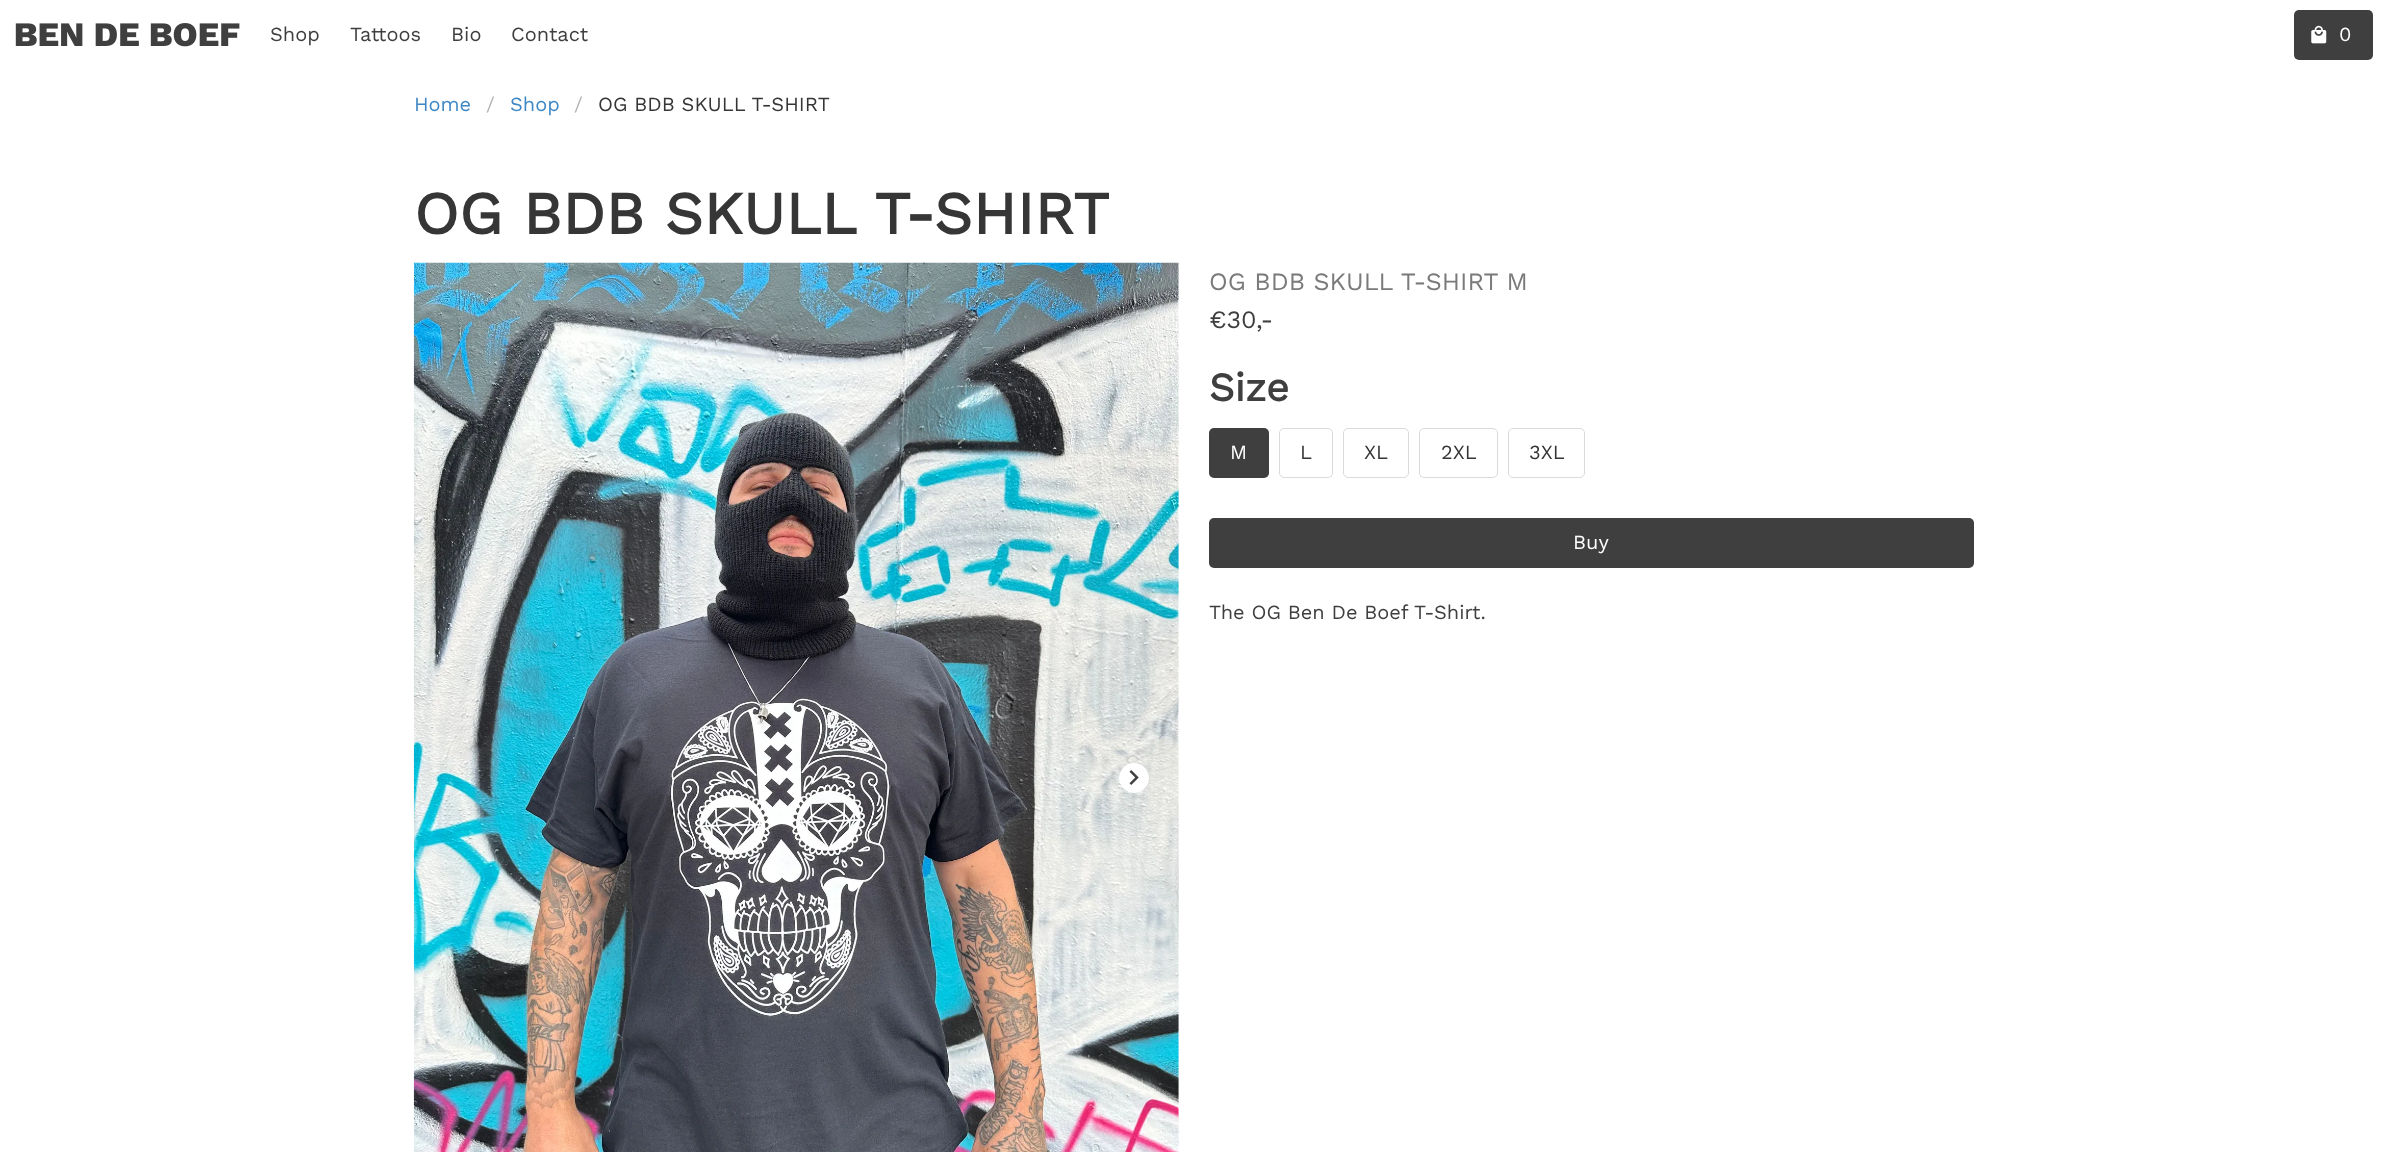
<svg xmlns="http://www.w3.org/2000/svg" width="2387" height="1152">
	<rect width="100%" height="100%" fill="#FFFFFF" />
	<image x="15" y="23" width="225" height="24" href="assets/img1.png" />
	<g font-family="Work Sans" font-size="20" fill="#3F3F3F">
		<text x="270" y="41">Shop</text>
		<text x="350" y="41">Tattoos</text>
		<text x="451" y="41">Bio</text>
		<text x="511" y="41">Contact</text>
	</g>
	<rect x="2294" y="10" width="79" height="50" rx="5" fill="#3F3F3F" />
	<image x="2311" y="25" width="16" height="19" href="assets/img2.png" />
	<text x="2339" y="41" font-family="Work Sans" font-size="20" fill="#FFFFFF">0</text>
	<text x="414" y="111" font-family="Work Sans" font-size="20" fill="#3F88C5">Home</text>
	<text x="486" y="111" font-family="Work Sans" font-size="20" fill="#B5B5B5">/</text>
	<text x="510" y="111" font-family="Work Sans" font-size="20" fill="#3F88C5">Shop</text>
	<text x="574" y="111" font-family="Work Sans" font-size="20" fill="#B5B5B5">/</text>
	<text x="598" y="111" font-family="Work Sans" font-size="20" fill="#363636">OG BDB SKULL T-SHIRT</text>
	<text x="414" y="234" font-family="Work Sans" font-size="60" font-weight="700" fill="#363636">OG BDB SKULL T-SHIRT</text>
	<image x="413" y="262" width="766" height="890" href="assets/img3.png" />
	<circle cx="1134" cy="778" r="14.5" fill="#FFFFFF" stroke="#FFFFFF" />
	<image x="1129" y="770" width="10" height="15" href="assets/img4.png" />
	<text x="1209" y="290" font-family="Work Sans" font-size="25" fill="#7A7A7A">OG BDB SKULL T-SHIRT M</text>
	<text x="1209" y="328" font-family="Work Sans" font-size="25" fill="#3F3F3F">€30,-</text>
	<text x="1209" y="401" font-family="Work Sans" font-size="40" font-weight="700" fill="#3F3F3F">Size</text>
	<rect x="1209" y="428" width="60" height="50" rx="5" fill="#3F3F3F" />
	<text x="1230" y="459" font-family="Work Sans" font-size="20" fill="#FFFFFF">M</text>
	<rect x="1279.5" y="428.5" width="53" height="49" rx="4.5" fill="none" stroke="#DBDBDB" />
	<text x="1300" y="459" font-family="Work Sans" font-size="20" fill="#363636">L</text>
	<rect x="1343.5" y="428.5" width="65" height="49" rx="4.5" fill="none" stroke="#DBDBDB" />
	<text x="1364" y="459" font-family="Work Sans" font-size="20" fill="#363636">XL</text>
	<rect x="1419.5" y="428.5" width="78" height="49" rx="4.5" fill="none" stroke="#DBDBDB" />
	<text x="1441" y="459" font-family="Work Sans" font-size="20" fill="#363636">2XL</text>
	<rect x="1508.5" y="428.5" width="76" height="49" rx="4.5" fill="none" stroke="#DBDBDB" />
	<text x="1529" y="459" font-family="Work Sans" font-size="20" fill="#363636">3XL</text>
	<rect x="1209" y="518" width="765" height="50" rx="5" fill="#3F3F3F" />
	<text x="1573" y="549" font-family="Work Sans" font-size="20" fill="#FFFFFF">Buy</text>
	<text x="1209" y="619" font-family="Work Sans" font-size="20" fill="#3F3F3F">The OG Ben De Boef T-Shirt.</text>
</svg>
